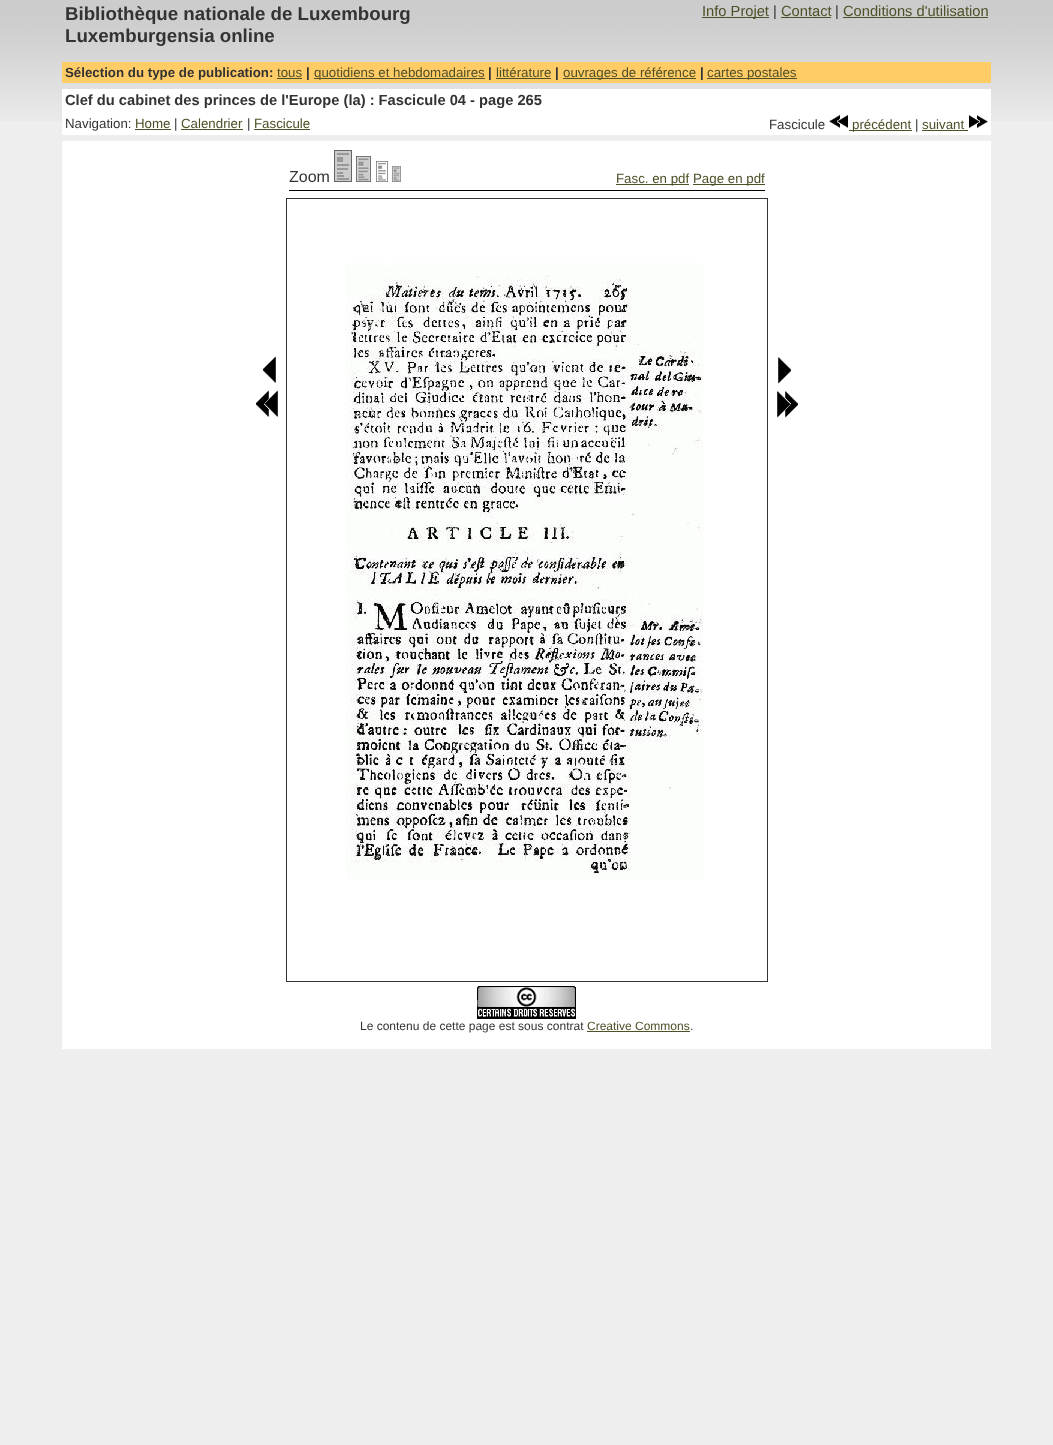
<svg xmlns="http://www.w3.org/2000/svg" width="1053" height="1445">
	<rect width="100%" height="100%" fill="#EEEEEE" />
	<image x="0" y="0" width="1053" height="121" href="assets/img1.png" />
	<image x="62" y="0" width="929" height="62" href="assets/img2.png" />
	<g font-family="Liberation Sans" font-size="18.7" font-weight="700" fill="#333333">
		<text x="65" y="20">Bibliothèque nationale de Luxembourg</text>
		<text x="65" y="42">Luxemburgensia online</text>
	</g>
	<rect x="702" y="17" width="67" height="1" fill="#4F4F28" />
	<text x="702" y="16" font-family="Liberation Sans" font-size="14.7" fill="#4F4F28">Info Projet</text>
	<text x="773" y="16" font-family="Liberation Sans" font-size="14.7" fill="#333333">|</text>
	<text x="781" y="16" font-family="Liberation Sans" font-size="14.7" fill="#4F4F28">Contact</text>
	<rect x="781" y="17" width="50" height="1" fill="#4F4F28" />
	<text x="835" y="16" font-family="Liberation Sans" font-size="14.7" fill="#333333">|</text>
	<text x="843" y="16" font-family="Liberation Sans" font-size="14.7" fill="#4F4F28">Conditions d'utilisation</text>
	<rect x="843" y="17" width="145" height="1" fill="#4F4F28" />
	<rect x="62" y="62" width="929" height="21" fill="#FFCC66" />
	<text x="65" y="77" font-family="Liberation Sans" font-size="13.3" font-weight="700" fill="#333333">Sélection du type de publication:</text>
	<text x="277" y="77" font-family="Liberation Sans" font-size="13.3" fill="#4F4F28">tous</text>
	<rect x="277" y="78" width="25" height="1" fill="#4F4F28" />
	<text x="306" y="77" font-family="Liberation Sans" font-size="13.3" font-weight="700" fill="#333333">|</text>
	<rect x="314" y="78" width="171" height="1" fill="#4F4F28" />
	<text x="314" y="77" font-family="Liberation Sans" font-size="13.3" fill="#4F4F28">quotidiens et hebdomadaires</text>
	<text x="488" y="77" font-family="Liberation Sans" font-size="13.3" font-weight="700" fill="#333333">|</text>
	<text x="496" y="77" font-family="Liberation Sans" font-size="13.3" fill="#4F4F28">littérature</text>
	<rect x="496" y="78" width="55" height="1" fill="#4F4F28" />
	<text x="555" y="77" font-family="Liberation Sans" font-size="13.3" font-weight="700" fill="#333333">|</text>
	<rect x="563" y="78" width="133" height="1" fill="#4F4F28" />
	<text x="563" y="77" font-family="Liberation Sans" font-size="13.3" fill="#4F4F28">ouvrages de référence</text>
	<text x="700" y="77" font-family="Liberation Sans" font-size="13.3" font-weight="700" fill="#333333">|</text>
	<rect x="707" y="78" width="90" height="1" fill="#4F4F28" />
	<text x="707" y="77" font-family="Liberation Sans" font-size="13.3" fill="#4F4F28">cartes postales</text>
	<rect x="62" y="89" width="929" height="46" fill="#FFFFFF" />
	<text x="65" y="105" font-family="Liberation Sans" font-size="14.7" font-weight="700" fill="#333333">Clef du cabinet des princes de l'Europe (la) : Fascicule 04 - page 265</text>
	<text x="65" y="128" font-family="Liberation Sans" font-size="13.3" fill="#333333">Navigation:</text>
	<text x="135" y="128" font-family="Liberation Sans" font-size="13.3" fill="#4F4F28">Home</text>
	<rect x="135" y="129" width="36" height="1" fill="#4F4F28" />
	<text x="174" y="128" font-family="Liberation Sans" font-size="13.3" fill="#333333">|</text>
	<text x="181" y="128" font-family="Liberation Sans" font-size="13.3" fill="#4F4F28">Calendrier</text>
	<rect x="181" y="129" width="62" height="1" fill="#4F4F28" />
	<text x="247" y="128" font-family="Liberation Sans" font-size="13.3" fill="#333333">|</text>
	<text x="254" y="128" font-family="Liberation Sans" font-size="13.3" fill="#4F4F28">Fascicule</text>
	<rect x="254" y="129" width="56" height="1" fill="#4F4F28" />
	<text x="769" y="129" font-family="Liberation Sans" font-size="13.3" fill="#333333">Fascicule</text>
	<image x="829" y="114" width="19" height="14" href="assets/img3.png" />
	<rect x="849" y="130" width="63" height="1" fill="#4F4F28" />
	<text x="852" y="129" font-family="Liberation Sans" font-size="13.3" fill="#4F4F28">précédent</text>
	<text x="915" y="129" font-family="Liberation Sans" font-size="13.3" fill="#333333">|</text>
	<text x="922" y="129" font-family="Liberation Sans" font-size="13.3" fill="#4F4F28">suivant</text>
	<rect x="922" y="130" width="46" height="1" fill="#4F4F28" />
	<image x="969" y="115" width="19" height="14" href="assets/img4.png" />
	<rect x="62" y="141" width="929" height="908" fill="#FFFFFF" />
	<text x="289" y="182" font-family="Liberation Sans" font-size="16" fill="#333333">Zoom</text>
	<image x="334" y="150" width="18" height="32" href="assets/img5.png" />
	<image x="356" y="156" width="15" height="26" href="assets/img6.png" />
	<image x="376" y="161" width="12" height="21" href="assets/img7.png" />
	<image x="392" y="166" width="9" height="16" href="assets/img8.png" />
	<rect x="616" y="184" width="73" height="1" fill="#4F4F28" />
	<text x="616" y="183" font-family="Liberation Sans" font-size="13.3" fill="#4F4F28">Fasc. en pdf</text>
	<rect x="693" y="184" width="72" height="1" fill="#4F4F28" />
	<text x="693" y="183" font-family="Liberation Sans" font-size="13.3" fill="#4F4F28">Page en pdf</text>
	<rect x="289" y="190" width="476" height="1" fill="#000000" />
	<image x="263" y="356" width="13" height="27" href="assets/img9.png" />
	<image x="256" y="390" width="22" height="27" href="assets/img10.png" />
	<rect x="286.5" y="198.5" width="481" height="783" fill="none" stroke="#333333" />
	<image x="346" y="263" width="357" height="616" href="assets/img11.png" />
	<image x="778" y="357" width="13" height="27" href="assets/img12.png" />
	<image x="777" y="391" width="21" height="27" href="assets/img13.png" />
	<image x="477" y="986" width="99" height="33" href="assets/img14.png" />
	<text x="360" y="1030" font-family="Liberation Sans" font-size="12" fill="#333333">Le contenu de cette page est sous contrat</text>
	<text x="587" y="1030" font-family="Liberation Sans" font-size="12" fill="#4F4F28">Creative Commons</text>
	<rect x="587" y="1031" width="103" height="1" fill="#4F4F28" />
	<text x="690" y="1030" font-family="Liberation Sans" font-size="12" fill="#333333">.</text>
</svg>
